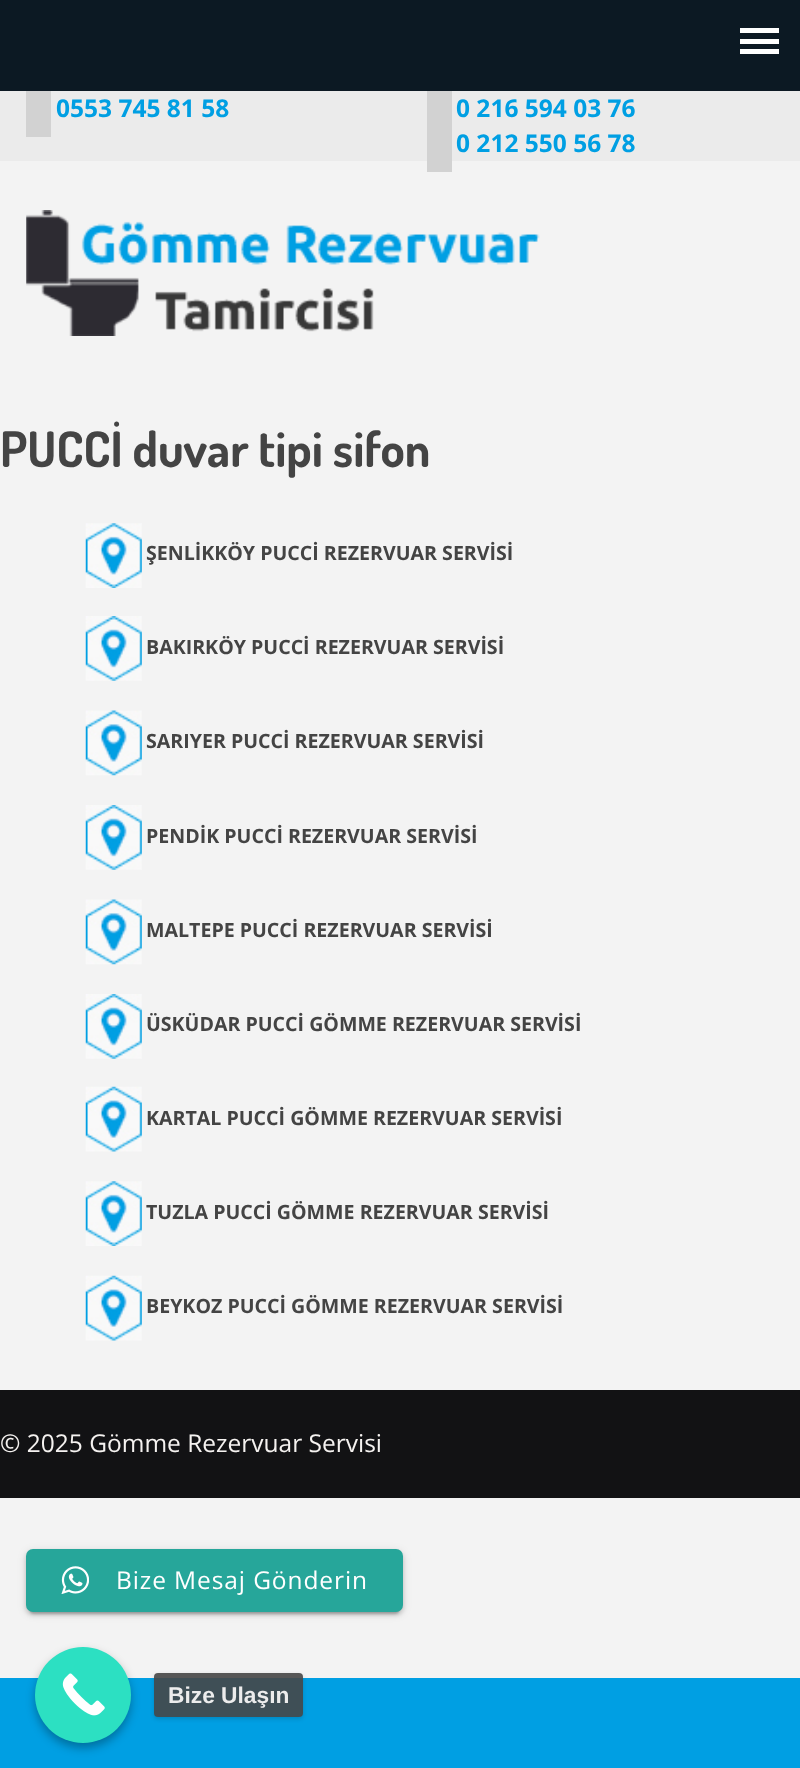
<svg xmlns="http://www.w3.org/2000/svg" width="800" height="1768">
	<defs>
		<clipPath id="clip1"><path d="M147 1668H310V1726H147ZM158 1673H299C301 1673 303 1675 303 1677V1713C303 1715 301 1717 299 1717H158C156 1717 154 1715 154 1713V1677C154 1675 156 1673 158 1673Z" clip-rule="evenodd" /></clipPath>
	</defs>
	<rect width="100%" height="100%" fill="#F3F3F3" />
	<rect x="0" y="0" width="800" height="91" fill="#0C1923" />
	<rect x="740" y="28" width="39" height="5" fill="#FFFFFF" />
	<rect x="740" y="39" width="39" height="5" fill="#FFFFFF" />
	<rect x="740" y="49" width="39" height="5" fill="#FFFFFF" />
	<rect x="0" y="91" width="800" height="70" fill="#EBEBEB" />
	<rect x="26" y="91" width="25" height="46" fill="#D2D2D2" />
	<text x="56" y="117" font-family="Open Sans" font-size="24.5" font-weight="700" fill="#009FE3">0553 745 81 58</text>
	<rect x="427" y="91" width="25" height="81" fill="#D2D2D2" />
	<g font-family="Open Sans" font-size="24.5" font-weight="700" fill="#009FE3">
		<text x="456" y="117">0 216 594 03 76</text>
		<text x="456" y="152">0 212 550 56 78</text>
	</g>
	<image x="26" y="210" width="514" height="126" href="assets/img1.png" />
	<text x="0" y="467" font-family="Dosis" font-size="49" font-weight="700" fill="#444444">PUCCİ duvar tipi sifon</text>
	<image x="85" y="523" width="57" height="65" href="assets/img2.png" />
	<text x="146" y="560" font-family="Open Sans" font-size="19.6" font-weight="700" fill="#444444">ŞENLİKKÖY PUCCİ REZERVUAR SERVİSİ</text>
	<image x="85" y="616" width="57" height="65" href="assets/img3.png" />
	<text x="146" y="654" font-family="Open Sans" font-size="19.6" font-weight="700" fill="#444444">BAKIRKÖY PUCCİ REZERVUAR SERVİSİ</text>
	<image x="85" y="710" width="57" height="66" href="assets/img4.png" />
	<text x="146" y="748" font-family="Open Sans" font-size="19.6" font-weight="700" fill="#444444">SARIYER PUCCİ REZERVUAR SERVİSİ</text>
	<image x="85" y="805" width="57" height="65" href="assets/img3.png" />
	<text x="146" y="843" font-family="Open Sans" font-size="19.6" font-weight="700" fill="#444444">PENDİK PUCCİ REZERVUAR SERVİSİ</text>
	<image x="85" y="899" width="57" height="66" href="assets/img4.png" />
	<text x="146" y="937" font-family="Open Sans" font-size="19.6" font-weight="700" fill="#444444">MALTEPE PUCCİ REZERVUAR SERVİSİ</text>
	<image x="85" y="994" width="57" height="65" href="assets/img3.png" />
	<text x="146" y="1031" font-family="Open Sans" font-size="19.6" font-weight="700" fill="#444444">ÜSKÜDAR PUCCİ GÖMME REZERVUAR SERVİSİ</text>
	<image x="85" y="1086" width="57" height="66" href="assets/img5.png" />
	<text x="146" y="1125" font-family="Open Sans" font-size="19.6" font-weight="700" fill="#444444">KARTAL PUCCİ GÖMME REZERVUAR SERVİSİ</text>
	<image x="85" y="1181" width="57" height="65" href="assets/img2.png" />
	<text x="146" y="1219" font-family="Open Sans" font-size="19.6" font-weight="700" fill="#444444">TUZLA PUCCİ GÖMME REZERVUAR SERVİSİ</text>
	<image x="85" y="1275" width="57" height="66" href="assets/img5.png" />
	<text x="146" y="1313" font-family="Open Sans" font-size="19.6" font-weight="700" fill="#444444">BEYKOZ PUCCİ GÖMME REZERVUAR SERVİSİ</text>
	<rect x="0" y="1390" width="800" height="108" fill="#121214" />
	<text x="0" y="1452" font-family="Open Sans" font-size="24.5" fill="#F5F2F0">© 2025 Gömme Rezervuar Servisi</text>
	<rect x="30" y="1558" width="369" height="56" rx="4" fill="#000000" fill-opacity="0.2" filter="blur(1px)" />
	<rect x="26" y="1551" width="377" height="63" rx="7" fill="#000000" fill-opacity="0.12" filter="blur(4.5px)" />
	<rect x="26" y="1552" width="377" height="63" rx="7" fill="#000000" fill-opacity="0.14" filter="blur(2px)" />
	<rect x="26" y="1549" width="377" height="63" rx="7" fill="#26A69A" />
	<image x="61" y="1566" width="28" height="28" href="assets/img6.png" />
	<text x="116" y="1589" font-family="Open Sans" font-size="24.5" letter-spacing="0.9" fill="#FFFFFF">Bize Mesaj Gönderin</text>
	<rect x="0" y="1678" width="800" height="90" fill="#009FE3" />
	<rect x="35" y="1652" width="96" height="96" rx="48" fill="#000000" fill-opacity="0.3" filter="blur(5px)" />
	<circle cx="83" cy="1695" r="48" fill="#2CE0C2" />
	<image x="62" y="1673" width="43" height="43" href="assets/img7.png" />
	<g clip-path="url(#clip1)">
		<rect x="154" y="1675" width="149" height="44" rx="4" fill="#000000" fill-opacity="0.15" filter="blur(2px)" />
	</g>
	<rect x="154" y="1673" width="149" height="44" rx="4" fill="#464646" fill-opacity="0.9" />
	<text x="168" y="1703" font-family="Liberation Sans" font-size="22.75" font-weight="700" fill="#ECECEC">Bize Ulaşın</text>
</svg>
